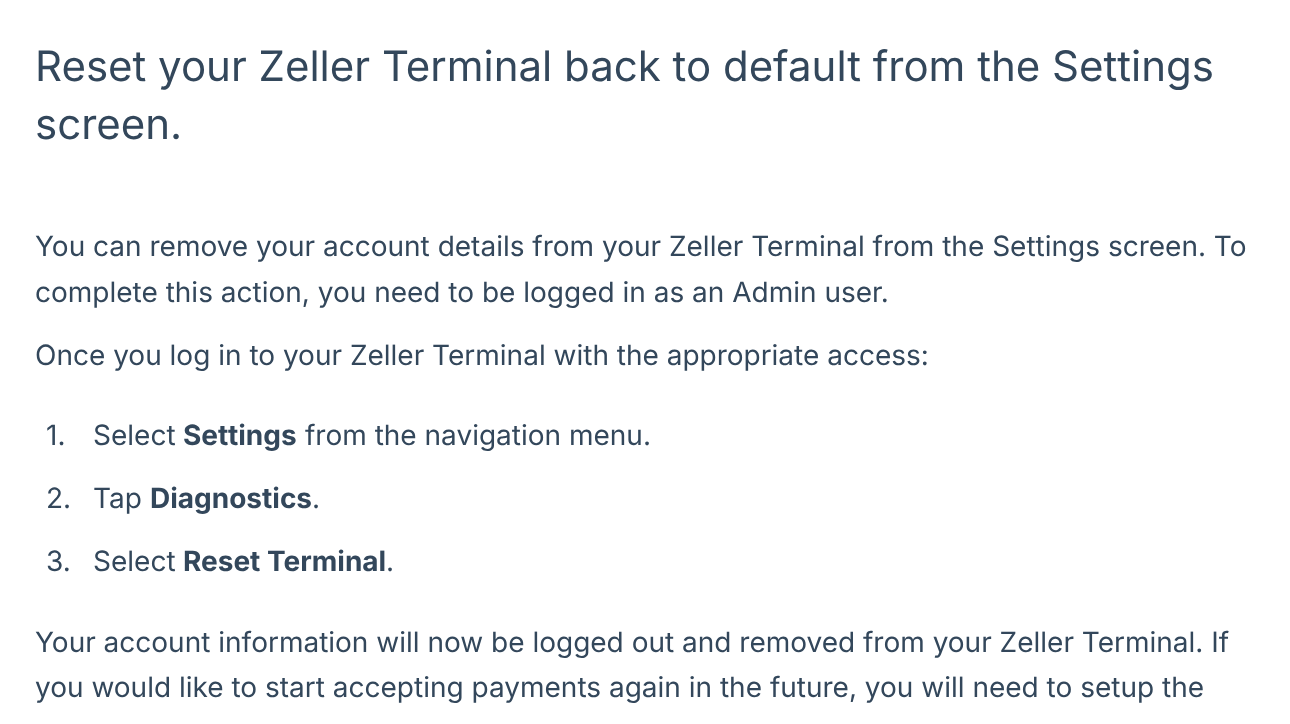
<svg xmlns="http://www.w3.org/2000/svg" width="1290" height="724">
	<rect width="100%" height="100%" fill="#FFFFFF" />
	<g font-family="Inter" font-size="42" fill="#33475B">
		<text x="35" y="81">Reset your Zeller Terminal back to default from the Settings</text>
		<text x="35" y="139">screen.</text>
	</g>
	<g font-family="Inter" font-size="28" fill="#33475B">
		<text x="35" y="256">You can remove your account details from your Zeller Terminal from the Settings screen. To</text>
		<text x="35" y="302">complete this action, you need to be logged in as an Admin user.</text>
		<text x="35" y="365">Once you log in to your Zeller Terminal with the appropriate access:</text>
		<text x="46" y="445">1.</text>
		<text x="93" y="445">Select</text>
	</g>
	<text x="183" y="445" font-family="Inter" font-size="28" font-weight="700" fill="#33475B">Settings</text>
	<g font-family="Inter" font-size="28" fill="#33475B">
		<text x="305" y="445">from the navigation menu.</text>
		<text x="46" y="508">2.</text>
		<text x="93" y="508">Tap</text>
	</g>
	<text x="150" y="508" font-family="Inter" font-size="28" font-weight="700" fill="#33475B">Diagnostics</text>
	<g font-family="Inter" font-size="28" fill="#33475B">
		<text x="312" y="508">.</text>
		<text x="46" y="571">3.</text>
		<text x="93" y="571">Select</text>
	</g>
	<text x="183" y="571" font-family="Inter" font-size="28" font-weight="700" fill="#33475B">Reset Terminal</text>
	<g font-family="Inter" font-size="28" fill="#33475B">
		<text x="386" y="571">.</text>
		<text x="35" y="652">Your account information will now be logged out and removed from your Zeller Terminal. If</text>
		<text x="35" y="697">you would like to start accepting payments again in the future, you will need to setup the</text>
	</g>
</svg>
